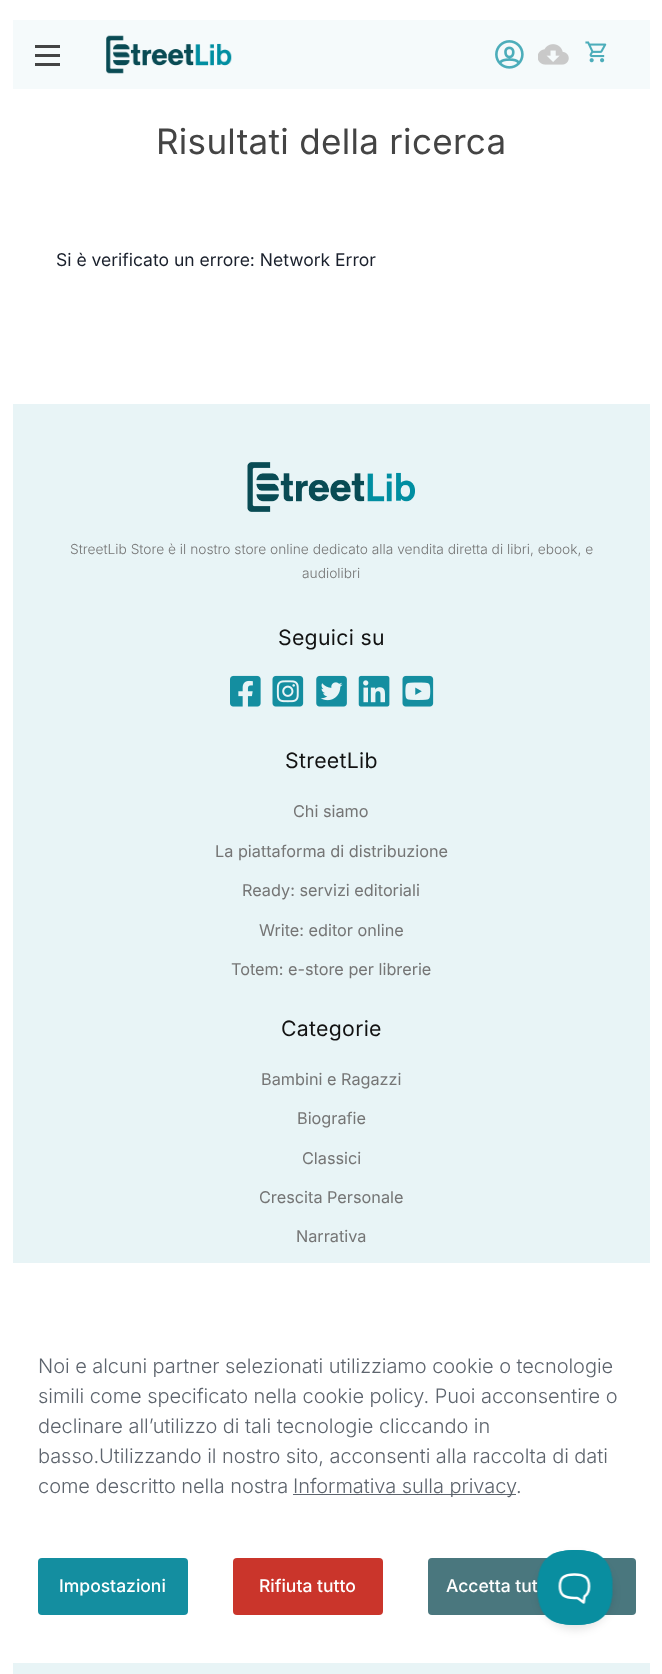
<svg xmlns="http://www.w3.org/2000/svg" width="662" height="1674">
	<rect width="100%" height="100%" fill="#FFFFFF" />
	<rect x="13" y="20" width="637" height="69" fill="#F5FAFB" />
	<rect x="35" y="54" width="25" height="3" fill="#444444" />
	<rect x="35" y="45" width="25" height="3" fill="#444444" />
	<rect x="35" y="63" width="25" height="3" fill="#444444" />
	<image x="106" y="35" width="126" height="39" href="assets/img1.png" />
	<image x="495" y="40" width="29" height="29" href="assets/img2.png" />
	<image x="538" y="44" width="31" height="21" href="assets/img3.png" />
	<image x="585" y="41" width="22" height="22" href="assets/img4.png" />
	<text x="156" y="154" font-family="Inter" font-size="35" letter-spacing="0.3" fill="#444444">Risultati della ricerca</text>
	<text x="56" y="266" font-family="Inter" font-size="17.5" fill="#1A202C">Si è verificato un errore: Network Error</text>
	<rect x="13" y="404" width="637" height="1270" fill="#E8F4F6" />
	<image x="247" y="462" width="168" height="50" href="assets/img5.png" />
	<g font-family="Inter" font-size="13.75" font-weight="300" fill="#757575">
		<text x="70" y="554">StreetLib Store è il nostro store online dedicato alla vendita diretta di libri, ebook, e</text>
		<text x="302" y="578">audiolibri</text>
	</g>
	<text x="278" y="645" font-family="Inter" font-size="21.25" letter-spacing="0.3" fill="#121212">Seguici su</text>
	<image x="230" y="675" width="31" height="32" href="assets/img6.png" />
	<image x="272" y="675" width="32" height="32" href="assets/img7.png" />
	<image x="316" y="675" width="31" height="32" href="assets/img8.png" />
	<image x="358" y="675" width="32" height="32" href="assets/img9.png" />
	<image x="402" y="675" width="32" height="32" href="assets/img10.png" />
	<text x="285" y="768" font-family="Inter" font-size="21.25" letter-spacing="0.3" fill="#121212">StreetLib</text>
	<g font-family="Inter" font-size="16.25" fill="#757575">
		<text x="293" y="817">Chi siamo</text>
		<text x="215" y="857">La piattaforma di distribuzione</text>
		<text x="242" y="896">Ready: servizi editoriali</text>
		<text x="259" y="936">Write: editor online</text>
		<text x="231" y="975">Totem: e-store per librerie</text>
	</g>
	<text x="281" y="1036" font-family="Inter" font-size="21.25" letter-spacing="0.3" fill="#121212">Categorie</text>
	<g font-family="Inter" font-size="16.25" fill="#757575">
		<text x="261" y="1085">Bambini e Ragazzi</text>
		<text x="297" y="1124">Biografie</text>
		<text x="302" y="1164">Classici</text>
		<text x="259" y="1203">Crescita Personale</text>
		<text x="296" y="1242">Narrativa</text>
	</g>
	<rect x="0" y="1263" width="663" height="400" rx="5" fill="#FFFFFF" />
	<g font-family="Inter" font-size="20" font-weight="300" letter-spacing="-0.05" fill="#5D646D">
		<text x="38" y="1373">Noi e alcuni partner selezionati utilizziamo cookie o tecnologie</text>
		<text x="38" y="1403">simili come specificato nella cookie policy. Puoi acconsentire o</text>
		<text x="38" y="1433">declinare all’utilizzo di tali tecnologie cliccando in</text>
		<text x="38" y="1463">basso.Utilizzando il nostro sito, acconsenti alla raccolta di dati</text>
		<text x="38" y="1493">come descritto nella nostra</text>
	</g>
	<rect x="293" y="1494" width="223" height="1" fill="#5D646D" />
	<g font-family="Inter" font-size="20" font-weight="300" letter-spacing="-0.05" fill="#5D646D">
		<text x="293" y="1493">Informativa sulla privacy</text>
		<text x="516" y="1493">.</text>
	</g>
	<rect x="38" y="1558" width="150" height="57" rx="4" fill="#148EA0" />
	<text x="59" y="1592" font-family="Inter" font-size="17.5" font-weight="500" fill="#FFFFFF">Impostazioni</text>
	<rect x="233" y="1558" width="150" height="57" rx="4" fill="#CA352B" />
	<text x="259" y="1592" font-family="Inter" font-size="17.5" font-weight="500" fill="#FFFFFF">Rifiuta tutto</text>
	<rect x="428" y="1558" width="208" height="57" rx="4" fill="#4A777E" />
	<text x="446" y="1592" font-family="Inter" font-size="17.5" font-weight="500" fill="#FFFFFF">Accetta tut</text>
	<rect x="538" y="1555" width="75" height="75" rx="37.5" fill="#000000" fill-opacity="0.1" filter="blur(4.5px)" />
	<image x="537" y="1550" width="76" height="75" href="assets/img11.png" />
</svg>
